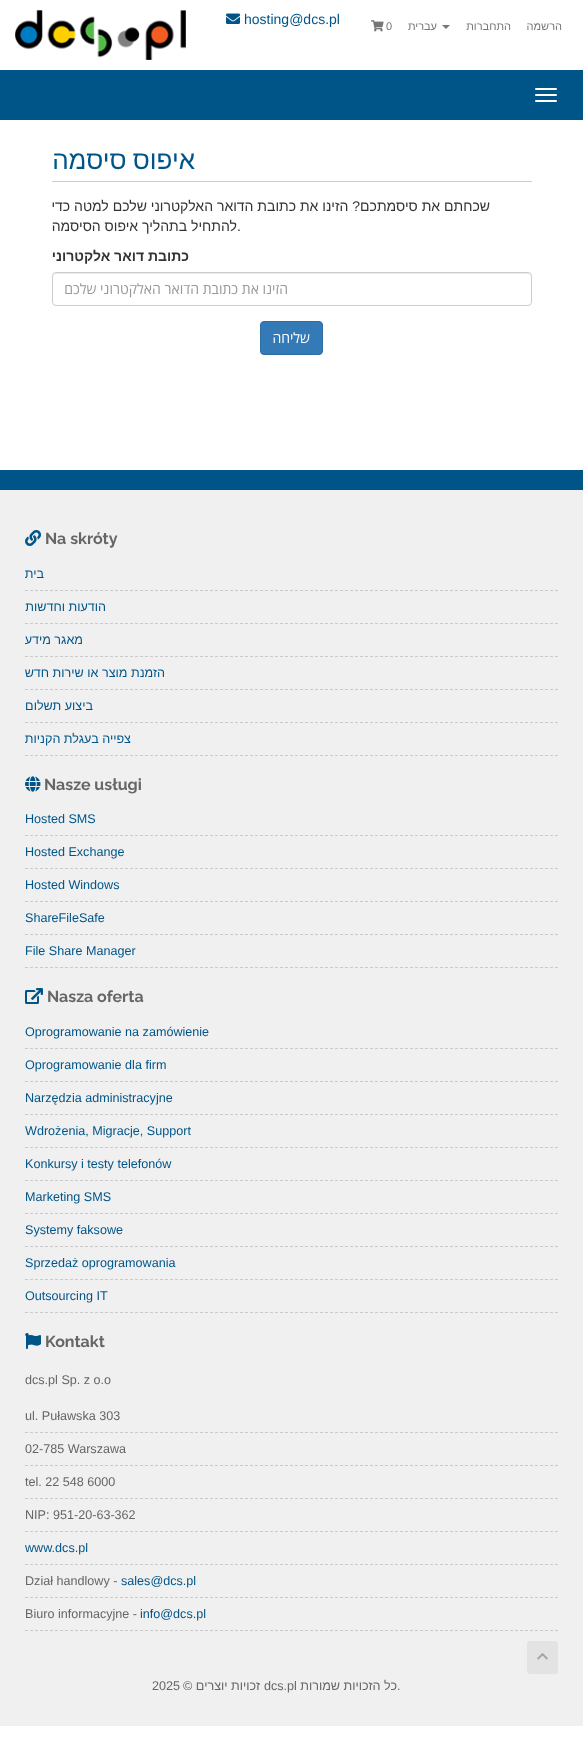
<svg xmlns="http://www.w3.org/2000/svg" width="583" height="1742">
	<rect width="100%" height="100%" fill="#FFFFFF" />
	<image x="15" y="10" width="171" height="50" href="assets/img1.png" />
	<image x="226" y="13" width="14" height="11" href="assets/img2.png" />
	<text x="244" y="24" font-family="Liberation Sans" font-size="14" fill="#005588">hosting@dcs.pl</text>
	<image x="371" y="20" width="13" height="12" href="assets/img3.png" />
	<text x="386" y="30" font-family="Liberation Sans" font-size="11" fill="#777777">0</text>
	<text x="437" y="30" font-family="Liberation Sans" font-size="11" direction="rtl" fill="#777777">עברית</text>
	<path d="M442 25H450L446 29Z" fill="#777777" />
	<g font-family="Liberation Sans" font-size="11" direction="rtl" fill="#777777">
		<text x="511" y="30">התחברות</text>
		<text x="562" y="30">הרשמה</text>
	</g>
	<rect x="0" y="70" width="583" height="50" fill="#005588" />
	<rect x="535" y="88" width="22" height="2" rx="1" fill="#FFFFFF" />
	<rect x="535" y="94" width="22" height="2" rx="1" fill="#FFFFFF" />
	<rect x="535" y="100" width="22" height="2" rx="1" fill="#FFFFFF" />
	<rect x="52" y="181" width="480" height="1" fill="#CCCCCC" />
	<text x="195" y="169" word-spacing="-1" font-family="Liberation Sans" font-size="26" direction="rtl" fill="#005588">איפוס סיסמה</text>
	<g font-family="Liberation Sans" font-size="14" direction="rtl" fill="#333333">
		<text x="490" y="211">שכחתם את סיסמתכם? הזינו את כתובת הדואר האלקטרוני שלכם למטה כדי</text>
		<text x="237" y="231">להתחיל בתהליך איפוס הסיסמה</text>
	</g>
	<text x="237" y="231" font-family="Liberation Sans" font-size="14" fill="#333333">.</text>
	<text x="189" y="261" font-family="Liberation Sans" font-size="14" font-weight="700" direction="rtl" fill="#333333">כתובת דואר אלקטרוני</text>
	<path d="M56 274H528C530 274 531 275 531 277V275L529 273H55C53 273 53 275 53 277C53 275 54 274 56 274Z" fill="#ECECEC" />
	<rect x="52.5" y="272.5" width="479" height="33" rx="3.5" fill="none" stroke="#CCCCCC" />
	<text x="288" y="294" font-family="Open Sans" font-size="14" direction="rtl" fill="#999999">הזינו את כתובת הדואר האלקטרוני שלכם</text>
	<rect x="260.5" y="321.5" width="62" height="33" rx="3.5" fill="#337AB7" stroke="#2E6DA4" />
	<text x="310" y="343" font-family="Open Sans" font-size="14" direction="rtl" fill="#FFFFFF">שליחה</text>
	<rect x="0" y="490" width="583" height="1236" fill="#F0F0F0" />
	<rect x="0" y="470" width="583" height="20" fill="#005588" />
	<image x="25" y="530" width="16" height="16" href="assets/img4.png" />
	<text x="45" y="544" font-family="Raleway" font-size="16" font-weight="700" fill="#666666">Na skróty</text>
	<path d="M25 590.5H558" fill="none" stroke="#CACACA" stroke-dasharray="3 2" />
	<text x="44" y="578" font-family="Liberation Sans" font-size="12.6" direction="rtl" fill="#005588">בית</text>
	<path d="M25 623.5H558" fill="none" stroke="#CACACA" stroke-dasharray="3 2" />
	<text x="106" y="611" font-family="Liberation Sans" font-size="12.6" direction="rtl" fill="#005588">הודעות וחדשות</text>
	<path d="M25 656.5H558" fill="none" stroke="#CACACA" stroke-dasharray="3 2" />
	<text x="83" y="644" font-family="Liberation Sans" font-size="12.6" direction="rtl" fill="#005588">מאגר מידע</text>
	<path d="M25 689.5H558" fill="none" stroke="#CACACA" stroke-dasharray="3 2" />
	<text x="165" y="677" font-family="Liberation Sans" font-size="12.6" direction="rtl" fill="#005588">הזמנת מוצר או שירות חדש</text>
	<path d="M25 722.5H558" fill="none" stroke="#CACACA" stroke-dasharray="3 2" />
	<text x="93" y="710" font-family="Liberation Sans" font-size="12.6" direction="rtl" fill="#005588">ביצוע תשלום</text>
	<path d="M25 755.5H558" fill="none" stroke="#CACACA" stroke-dasharray="3 2" />
	<text x="131" y="743" font-family="Liberation Sans" font-size="12.6" direction="rtl" fill="#005588">צפייה בעגלת הקניות</text>
	<image x="25" y="776" width="16" height="16" href="assets/img5.png" />
	<text x="44" y="790" font-family="Raleway" font-size="16" font-weight="700" fill="#666666">Nasze usługi</text>
	<path d="M25 835.5H558" fill="none" stroke="#CACACA" stroke-dasharray="3 2" />
	<text x="25" y="823" font-family="Liberation Sans" font-size="12.6" fill="#005588">Hosted SMS</text>
	<path d="M25 868.5H558" fill="none" stroke="#CACACA" stroke-dasharray="3 2" />
	<text x="25" y="856" font-family="Liberation Sans" font-size="12.6" fill="#005588">Hosted Exchange</text>
	<path d="M25 901.5H558" fill="none" stroke="#CACACA" stroke-dasharray="3 2" />
	<text x="25" y="889" font-family="Liberation Sans" font-size="12.6" fill="#005588">Hosted Windows</text>
	<path d="M25 934.5H558" fill="none" stroke="#CACACA" stroke-dasharray="3 2" />
	<text x="25" y="922" font-family="Liberation Sans" font-size="12.6" fill="#005588">ShareFileSafe</text>
	<path d="M25 967.5H558" fill="none" stroke="#CACACA" stroke-dasharray="3 2" />
	<text x="25" y="955" font-family="Liberation Sans" font-size="12.6" fill="#005588">File Share Manager</text>
	<image x="25" y="988" width="18" height="16" href="assets/img6.png" />
	<text x="47" y="1002" font-family="Raleway" font-size="16" font-weight="700" fill="#666666">Nasza oferta</text>
	<path d="M25 1048.5H558" fill="none" stroke="#CACACA" stroke-dasharray="3 2" />
	<text x="25" y="1036" font-family="Liberation Sans" font-size="12.6" fill="#005588">Oprogramowanie na zamówienie</text>
	<path d="M25 1081.5H558" fill="none" stroke="#CACACA" stroke-dasharray="3 2" />
	<text x="25" y="1069" font-family="Liberation Sans" font-size="12.6" fill="#005588">Oprogramowanie dla firm</text>
	<path d="M25 1114.5H558" fill="none" stroke="#CACACA" stroke-dasharray="3 2" />
	<text x="25" y="1102" font-family="Liberation Sans" font-size="12.6" fill="#005588">Narzędzia administracyjne</text>
	<path d="M25 1147.5H558" fill="none" stroke="#CACACA" stroke-dasharray="3 2" />
	<text x="25" y="1135" font-family="Liberation Sans" font-size="12.6" fill="#005588">Wdrożenia, Migracje, Support</text>
	<path d="M25 1180.5H558" fill="none" stroke="#CACACA" stroke-dasharray="3 2" />
	<text x="25" y="1168" font-family="Liberation Sans" font-size="12.6" fill="#005588">Konkursy i testy telefonów</text>
	<path d="M25 1213.5H558" fill="none" stroke="#CACACA" stroke-dasharray="3 2" />
	<text x="25" y="1201" font-family="Liberation Sans" font-size="12.6" fill="#005588">Marketing SMS</text>
	<path d="M25 1246.5H558" fill="none" stroke="#CACACA" stroke-dasharray="3 2" />
	<text x="25" y="1234" font-family="Liberation Sans" font-size="12.6" fill="#005588">Systemy faksowe</text>
	<path d="M25 1279.5H558" fill="none" stroke="#CACACA" stroke-dasharray="3 2" />
	<text x="25" y="1267" font-family="Liberation Sans" font-size="12.6" fill="#005588">Sprzedaż oprogramowania</text>
	<path d="M25 1312.5H558" fill="none" stroke="#CACACA" stroke-dasharray="3 2" />
	<text x="25" y="1300" font-family="Liberation Sans" font-size="12.6" fill="#005588">Outsourcing IT</text>
	<image x="25" y="1333" width="16" height="16" href="assets/img7.png" />
	<text x="45" y="1347" font-family="Raleway" font-size="16" font-weight="700" fill="#666666">Kontakt</text>
	<text x="25" y="1384" font-family="Liberation Sans" font-size="12.6" fill="#666666">dcs.pl Sp. z o.o</text>
	<path d="M25 1432.5H558" fill="none" stroke="#CACACA" stroke-dasharray="3 2" />
	<text x="25" y="1420" font-family="Liberation Sans" font-size="12.6" fill="#666666">ul. Puławska 303</text>
	<path d="M25 1465.5H558" fill="none" stroke="#CACACA" stroke-dasharray="3 2" />
	<text x="25" y="1453" font-family="Liberation Sans" font-size="12.6" fill="#666666">02-785 Warszawa</text>
	<path d="M25 1498.5H558" fill="none" stroke="#CACACA" stroke-dasharray="3 2" />
	<text x="25" y="1486" font-family="Liberation Sans" font-size="12.6" fill="#666666">tel. 22 548 6000</text>
	<path d="M25 1531.5H558" fill="none" stroke="#CACACA" stroke-dasharray="3 2" />
	<text x="25" y="1519" font-family="Liberation Sans" font-size="12.6" fill="#666666">NIP: 951-20-63-362</text>
	<path d="M25 1564.5H558" fill="none" stroke="#CACACA" stroke-dasharray="3 2" />
	<text x="25" y="1552" font-family="Liberation Sans" font-size="12.6" fill="#005588">www.dcs.pl</text>
	<path d="M25 1597.5H558" fill="none" stroke="#CACACA" stroke-dasharray="3 2" />
	<text x="25" y="1585" font-family="Liberation Sans" font-size="12.6" fill="#666666">Dział handlowy -</text>
	<text x="121" y="1585" font-family="Liberation Sans" font-size="12.6" fill="#005588">sales@dcs.pl</text>
	<path d="M25 1630.5H558" fill="none" stroke="#CACACA" stroke-dasharray="3 2" />
	<text x="25" y="1618" font-family="Liberation Sans" font-size="12.6" fill="#666666">Biuro informacyjne -</text>
	<text x="140" y="1618" font-family="Liberation Sans" font-size="12.6" fill="#005588">info@dcs.pl</text>
	<rect x="527" y="1641" width="31" height="33" rx="3" fill="#E3E3E3" />
	<image x="537" y="1653" width="11" height="7" href="assets/img8.png" />
	<text x="152" y="1690" font-family="Liberation Sans" font-size="12.6" fill="#666666">2025</text>
	<text x="260" y="1690" font-family="Liberation Sans" font-size="12.6" direction="rtl" fill="#666666">זכויות יוצרים ©</text>
	<text x="264" y="1690" font-family="Liberation Sans" font-size="12.6" fill="#666666">dcs.pl</text>
	<text x="397" y="1690" font-family="Liberation Sans" font-size="12.6" direction="rtl" fill="#666666">כל הזכויות שמורות</text>
	<text x="397" y="1690" font-family="Liberation Sans" font-size="12.6" fill="#666666">.</text>
</svg>
